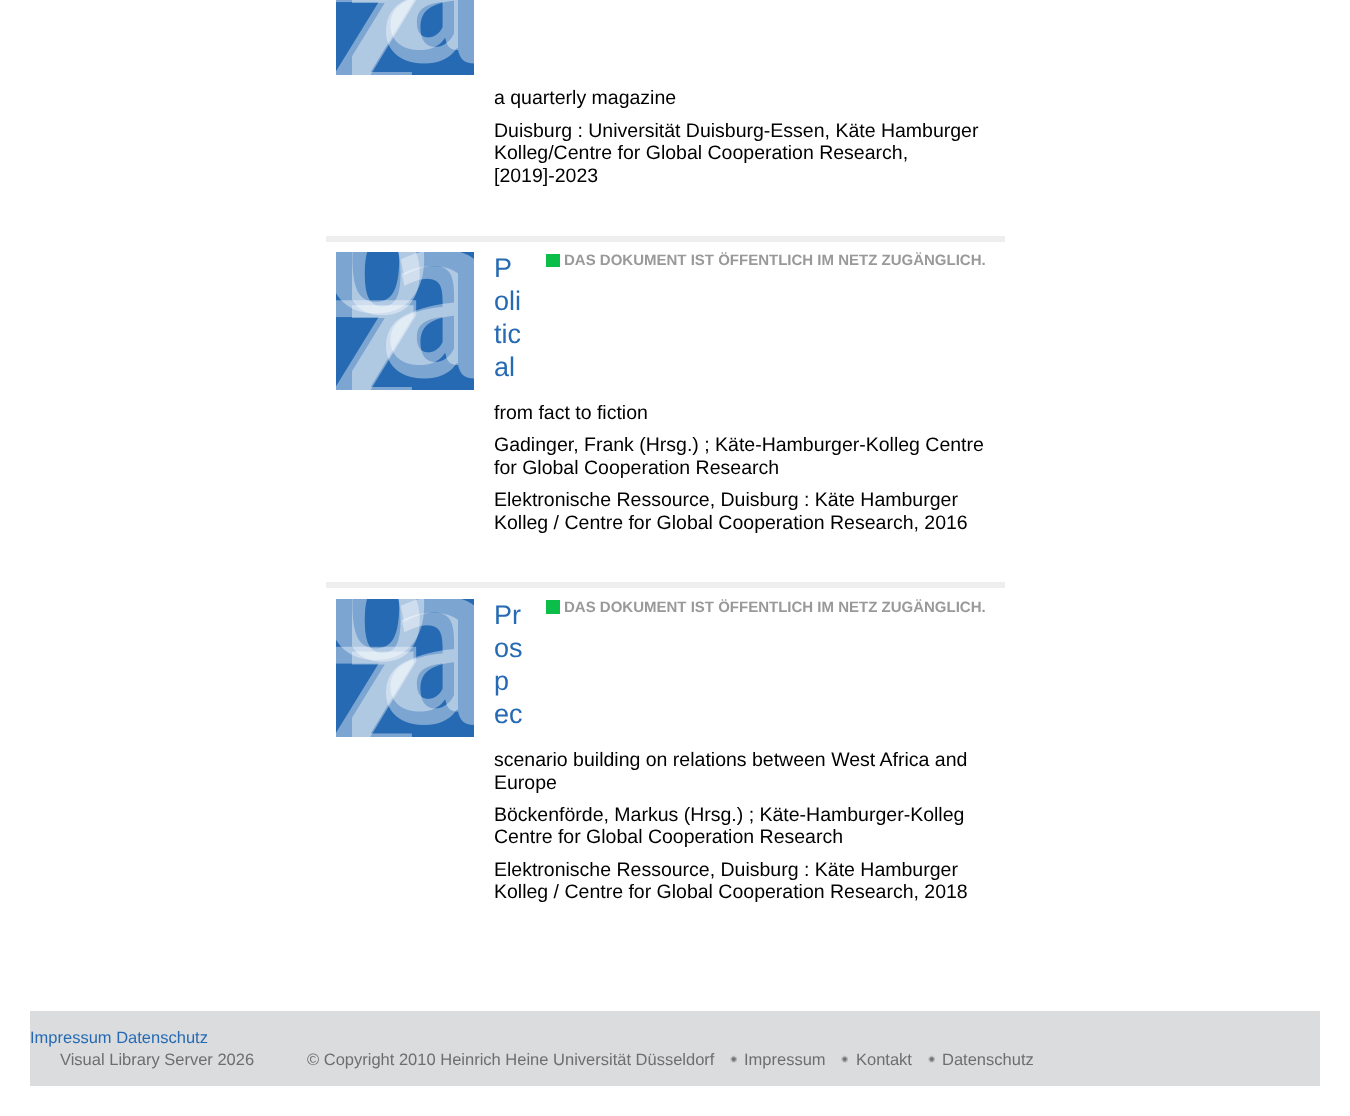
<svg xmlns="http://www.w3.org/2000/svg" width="1350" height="1116">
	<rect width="100%" height="100%" fill="#FFFFFF" />
	<rect x="336" y="0" width="138" height="75" fill="#266AB3" />
	<image x="336" y="0" width="138" height="75" href="assets/img1.png" />
	<image x="352" y="0" width="106" height="75" href="assets/img2.png" />
	<g font-family="Liberation Sans" font-size="19.5" fill="#000000">
		<text x="494" y="104">a quarterly magazine</text>
		<text x="494" y="137">Duisburg : Universität Duisburg-Essen, Käte Hamburger</text>
		<text x="494" y="159">Kolleg/Centre for Global Cooperation Research,</text>
		<text x="494" y="182">[2019]-2023</text>
	</g>
	<rect x="326" y="236" width="679" height="6" fill="#EEEEEE" />
	<rect x="336" y="252" width="138" height="138" fill="#266AB3" />
	<image x="336" y="252" width="138" height="138" href="assets/img3.png" />
	<image x="352" y="252" width="106" height="138" href="assets/img4.png" />
	<rect x="546" y="254" width="14" height="13" fill="#0BBE49" />
	<text x="564" y="265" font-family="Liberation Sans" font-size="15" font-weight="700" fill="#999999">DAS DOKUMENT IST ÖFFENTLICH IM NETZ ZUGÄNGLICH.</text>
	<g font-family="Liberation Sans" font-size="27" fill="#266AB3">
		<text x="494" y="277">P</text>
		<text x="494" y="310">oli</text>
		<text x="494" y="343">tic</text>
		<text x="494" y="376">al</text>
	</g>
	<g font-family="Liberation Sans" font-size="19.5" fill="#000000">
		<text x="494" y="419">from fact to fiction</text>
		<text x="494" y="451">Gadinger, Frank (Hrsg.) ; Käte-Hamburger-Kolleg Centre</text>
		<text x="494" y="474">for Global Cooperation Research</text>
		<text x="494" y="506">Elektronische Ressource, Duisburg : Käte Hamburger</text>
		<text x="494" y="529">Kolleg / Centre for Global Cooperation Research, 2016</text>
	</g>
	<rect x="326" y="582" width="679" height="6" fill="#EEEEEE" />
	<rect x="336" y="599" width="138" height="138" fill="#266AB3" />
	<image x="336" y="599" width="138" height="138" href="assets/img5.png" />
	<image x="352" y="599" width="106" height="138" href="assets/img6.png" />
	<rect x="546" y="600" width="14" height="14" fill="#0BBE49" />
	<text x="564" y="612" font-family="Liberation Sans" font-size="15" font-weight="700" fill="#999999">DAS DOKUMENT IST ÖFFENTLICH IM NETZ ZUGÄNGLICH.</text>
	<g font-family="Liberation Sans" font-size="27" fill="#266AB3">
		<text x="494" y="624">Pr</text>
		<text x="494" y="657">os</text>
		<text x="494" y="690">p</text>
		<text x="494" y="723">ec</text>
	</g>
	<g font-family="Liberation Sans" font-size="19.5" fill="#000000">
		<text x="494" y="766">scenario building on relations between West Africa and</text>
		<text x="494" y="789">Europe</text>
		<text x="494" y="821">Böckenförde, Markus (Hrsg.) ; Käte-Hamburger-Kolleg</text>
		<text x="494" y="843">Centre for Global Cooperation Research</text>
		<text x="494" y="876">Elektronische Ressource, Duisburg : Käte Hamburger</text>
		<text x="494" y="898">Kolleg / Centre for Global Cooperation Research, 2018</text>
	</g>
	<rect x="30" y="1011" width="1290" height="75" fill="#DBDCDD" />
	<text x="30" y="1043" font-family="Liberation Sans" font-size="16.5" fill="#266AB3">Impressum Datenschutz</text>
	<g font-family="Liberation Sans" font-size="16.5" fill="#6D6E6E">
		<text x="60" y="1065">Visual Library Server 2026</text>
		<text x="307" y="1065">© Copyright 2010 Heinrich Heine Universität Düsseldorf</text>
	</g>
	<image x="730" y="1055" width="7" height="8" href="assets/img7.png" />
	<text x="744" y="1065" font-family="Liberation Sans" font-size="16.5" fill="#6D6E6E">Impressum</text>
	<image x="841" y="1055" width="7" height="8" href="assets/img8.png" />
	<text x="856" y="1065" font-family="Liberation Sans" font-size="16.5" fill="#6D6E6E">Kontakt</text>
	<image x="928" y="1055" width="7" height="8" href="assets/img8.png" />
	<text x="942" y="1065" font-family="Liberation Sans" font-size="16.5" fill="#6D6E6E">Datenschutz</text>
</svg>
